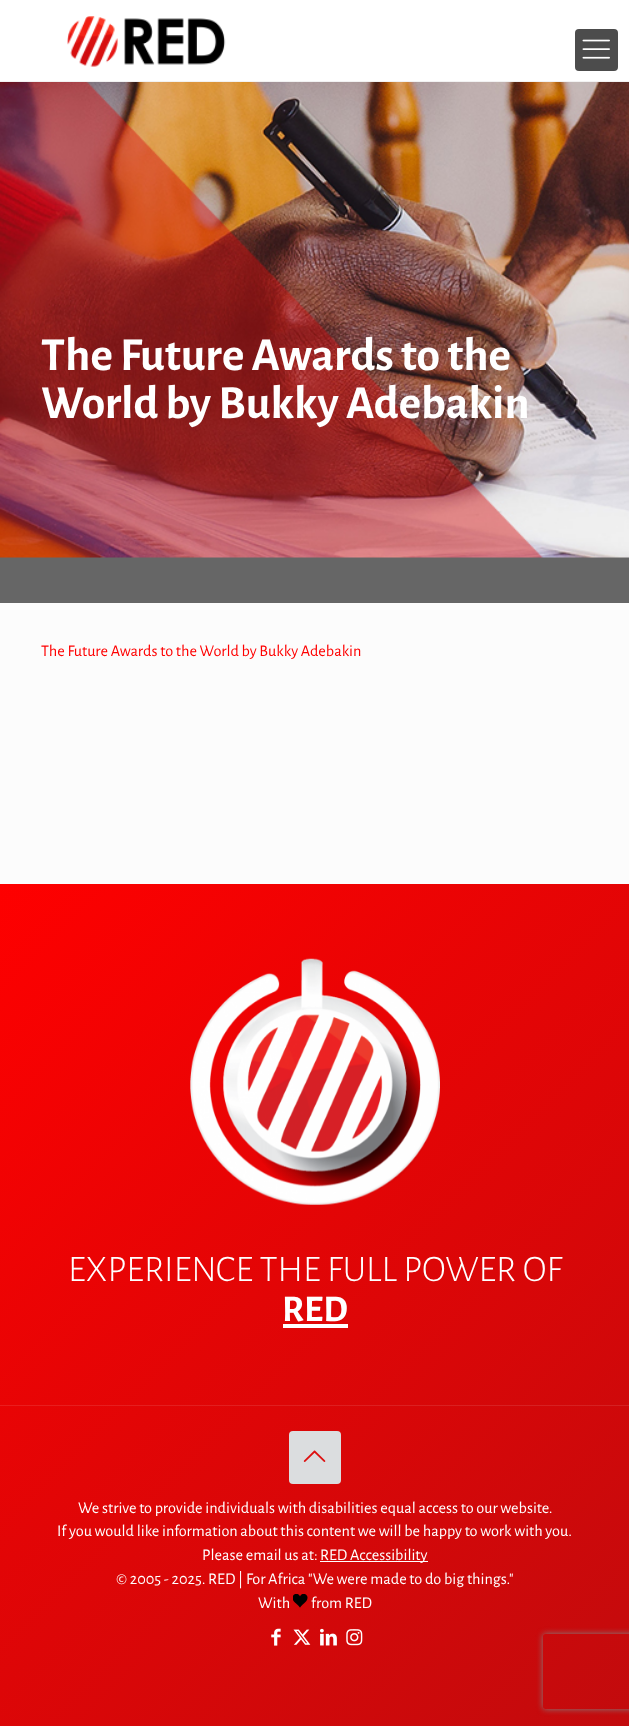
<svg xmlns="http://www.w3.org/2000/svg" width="629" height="1726">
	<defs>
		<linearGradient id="g1" gradientUnits="userSpaceOnUse" x1="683" y1="1673" x2="-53" y2="937"><stop offset="0" stop-color="#C20B0D" /><stop offset="1" stop-color="#FE0000" /></linearGradient>
		<linearGradient id="g2" gradientUnits="userSpaceOnUse" x1="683" y1="1673" x2="-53" y2="937"><stop offset="0" stop-color="#C82325" /><stop offset="1" stop-color="#FE1A1A" /></linearGradient>
		<clipPath id="clip1"><path d="M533 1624H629V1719H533ZM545.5 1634H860.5C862 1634 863 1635 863 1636.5V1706.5C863 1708 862 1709 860.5 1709H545.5C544 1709 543 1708 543 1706.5V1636.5C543 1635 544 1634 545.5 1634Z" clip-rule="evenodd" /></clipPath>
	</defs>
	<rect width="100%" height="100%" fill="#FCFCFC" />
	<rect x="0" y="557" width="629" height="46" fill="#666666" />
	<image x="0" y="82" width="629" height="476" href="assets/img1.png" />
	<rect x="0" y="0" width="629" height="81" fill="#FFFFFF" />
	<rect x="0" y="81" width="629" height="1" fill="#F2F2F2" />
	<image x="67" y="16" width="159" height="51" href="assets/img2.png" />
	<rect x="575" y="29" width="43" height="42" rx="4" fill="#4C4C4C" />
	<image x="582" y="39" width="28" height="20" href="assets/img3.png" />
	<g font-family="Alegreya Sans" font-size="47.5" font-weight="700" fill="#FFFFFF">
		<text x="41" y="370">The Future Awards to the</text>
		<text x="41" y="418">World by Bukky Adebakin</text>
	</g>
	<text x="41" y="656" font-family="Alegreya Sans" font-size="16.25" fill="#FE0000">The Future Awards to the World by Bukky Adebakin</text>
	<rect x="0" y="884" width="629" height="842" fill="url(#g1)" />
	<rect x="0" y="1405" width="629" height="1" fill="url(#g2)" />
	<image x="190" y="958" width="250" height="247" href="assets/img4.png" />
	<text x="68" y="1281" font-family="Alegreya Sans" font-size="37.5" font-weight="300" fill="#FFFFFF">EXPERIENCE THE FULL POWER OF</text>
	<text x="282" y="1321" font-family="Alegreya Sans" font-size="37.5" font-weight="700" fill="#FFFFFF">RED</text>
	<rect x="283" y="1324" width="65" height="4" fill="#FFFFFF" />
	<rect x="289" y="1431" width="52" height="53" rx="4" fill="#DBDDDF" />
	<image x="303" y="1450" width="23" height="12" href="assets/img5.png" />
	<g font-family="Alegreya Sans" font-size="16.25" fill="#FFFFFF">
		<text x="78" y="1513">We strive to provide individuals with disabilities equal access to our website.</text>
		<text x="57" y="1536">If you would like information about this content we will be happy to work with you.</text>
		<text x="202" y="1560">Please email us at:</text>
	</g>
	<rect x="320" y="1561" width="108" height="1" fill="#FFFFFF" />
	<g font-family="Alegreya Sans" font-size="16.25" fill="#FFFFFF">
		<text x="320" y="1560">RED Accessibility</text>
		<text x="116" y="1584">© 2005 - 2025. RED | For Africa "We were made to do big things."</text>
		<text x="258" y="1608">With</text>
	</g>
	<image x="293" y="1594" width="15" height="14" href="assets/img6.png" />
	<text x="311" y="1608" font-family="Alegreya Sans" font-size="16.25" fill="#FFFFFF">from RED</text>
	<image x="271" y="1628" width="10" height="18" href="assets/img7.png" />
	<image x="293" y="1629" width="18" height="16" href="assets/img8.png" />
	<image x="320" y="1628" width="17" height="18" href="assets/img9.png" />
	<image x="346" y="1629" width="17" height="17" href="assets/img10.png" />
	<g clip-path="url(#clip1)">
		<rect x="543" y="1634" width="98" height="75" rx="2.5" fill="#808080" filter="blur(3px)" />
	</g>
</svg>
